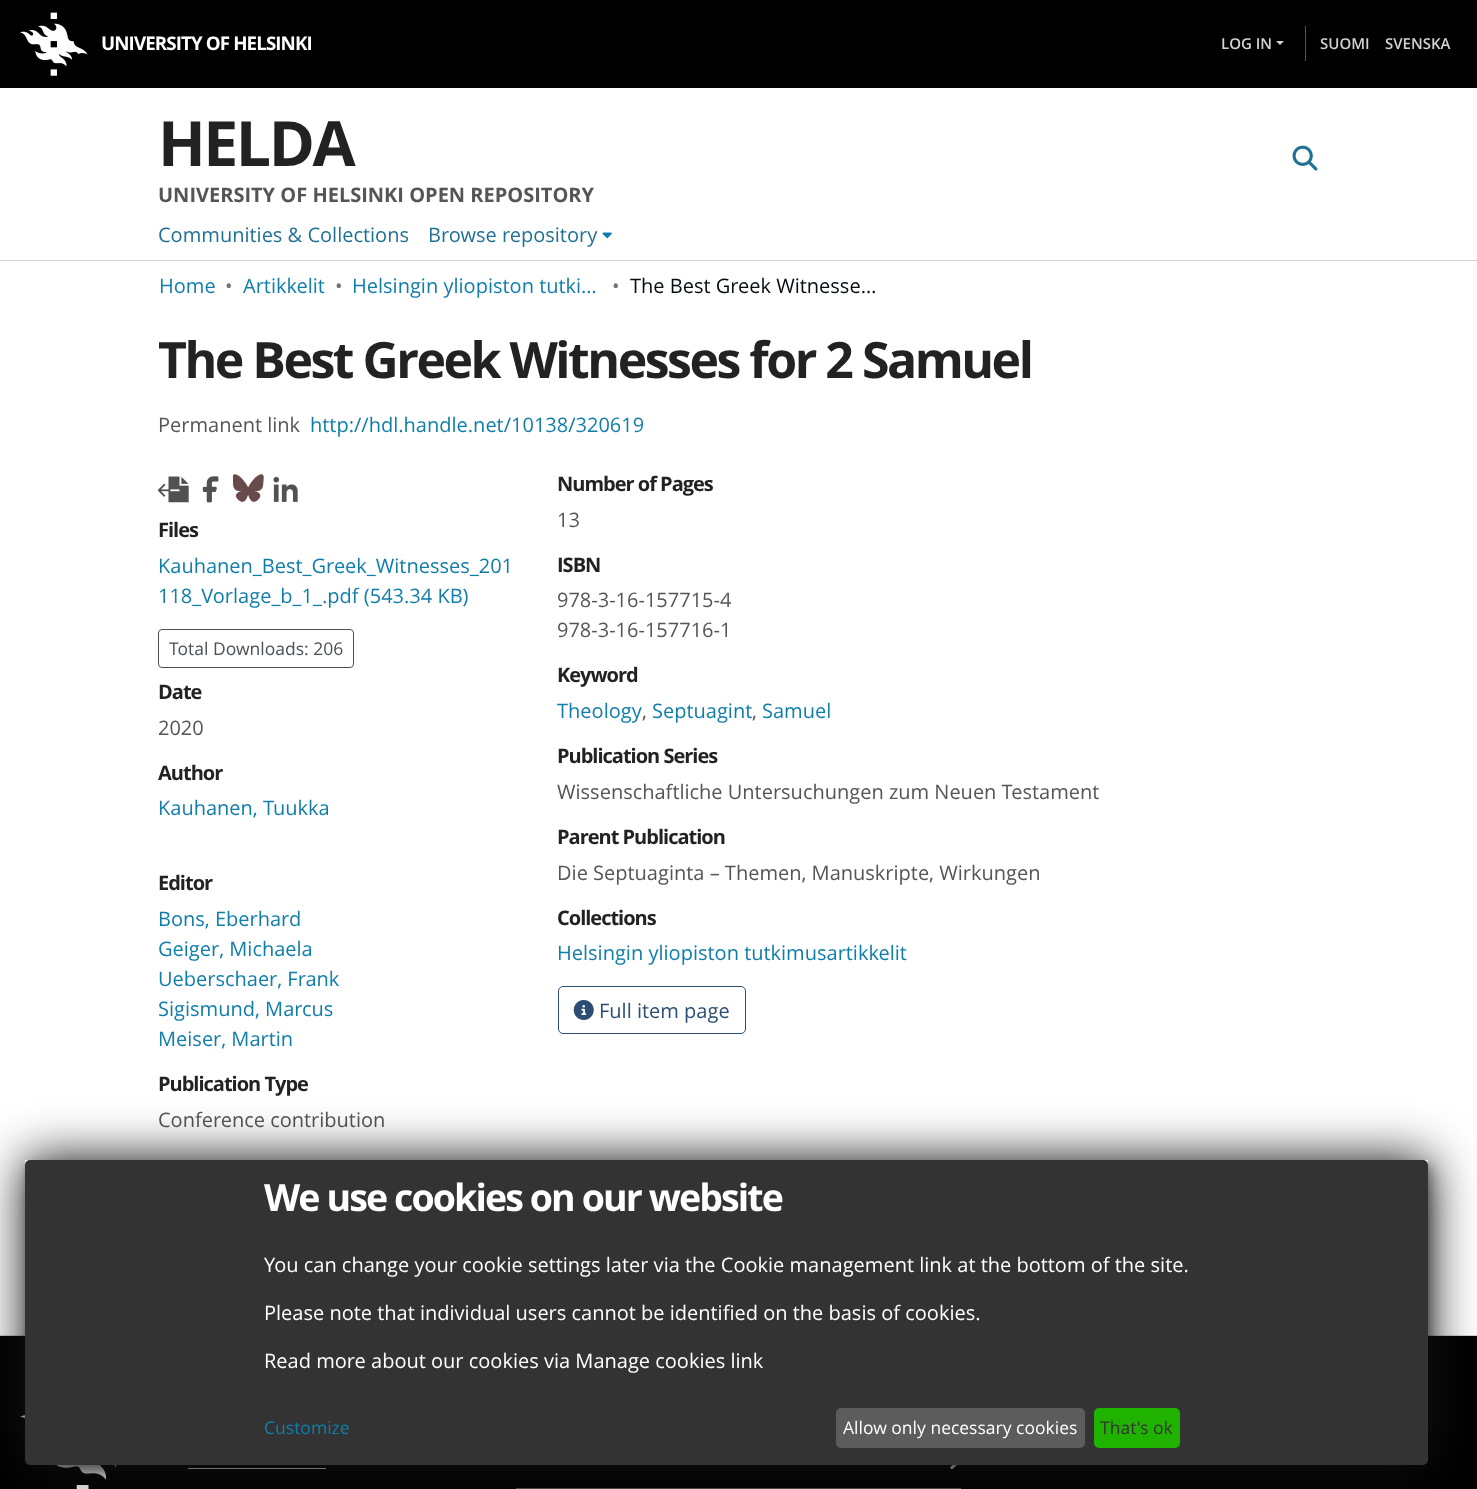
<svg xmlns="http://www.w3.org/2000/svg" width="1477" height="1489">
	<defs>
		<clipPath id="clip1"><path d="M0 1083H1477V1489H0ZM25 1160H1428V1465H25Z" clip-rule="evenodd" /></clipPath>
	</defs>
	<rect width="100%" height="100%" fill="#FFFFFF" />
	<rect x="0" y="260" width="1477" height="1" fill="#CED4DA" />
	<rect x="0" y="0" width="1477" height="88" fill="#000000" />
	<image x="20" y="12" width="68" height="64" href="assets/img1.png" />
	<text x="101" y="50" font-family="Open Sans" font-size="18.75" font-weight="700" letter-spacing="-0.9" fill="#FFFFFF">UNIVERSITY OF HELSINKI</text>
	<text x="1221" y="49" font-family="Open Sans" font-size="15" font-weight="600" fill="#D2D2D2">LOG IN</text>
	<path d="M1276 41H1284L1280 45Z" fill="#D2D2D2" />
	<rect x="1305" y="26" width="1" height="35" fill="#555555" />
	<g font-family="Open Sans" font-size="15" font-weight="600" fill="#D2D2D2">
		<text x="1320" y="49">SUOMI</text>
		<text x="1385" y="49">SVENSKA</text>
	</g>
	<text x="158" y="166" font-family="Open Sans" font-size="62.5" font-weight="700" letter-spacing="-2.5" fill="#222222">HELDA</text>
	<text x="158" y="202" font-family="Open Sans" font-size="20" font-weight="700" fill="#555555">UNIVERSITY OF HELSINKI OPEN REPOSITORY</text>
	<image x="1292" y="145" width="26" height="26" href="assets/img2.png" />
	<g font-family="Open Sans" font-size="20" fill="#1F7293">
		<text x="158" y="242">Communities &amp; Collections</text>
		<text x="428" y="242">Browse repository</text>
	</g>
	<image x="602" y="232" width="10" height="7" href="assets/img3.png" />
	<text x="159" y="293" font-family="Open Sans" font-size="20" fill="#107EAB">Home</text>
	<text x="225" y="293" font-family="Open Sans" font-size="20" fill="#6C757D">•</text>
	<text x="243" y="293" font-family="Open Sans" font-size="20" fill="#107EAB">Artikkelit</text>
	<text x="335" y="293" font-family="Open Sans" font-size="20" fill="#6C757D">•</text>
	<text x="352" y="293" font-family="Open Sans" font-size="20" fill="#107EAB">Helsingin yliopiston tutki…</text>
	<text x="612" y="293" font-family="Open Sans" font-size="20" fill="#6C757D">•</text>
	<text x="630" y="293" font-family="Open Sans" font-size="20" fill="#040D11">The Best Greek Witnesse…</text>
	<text x="158" y="378" font-family="Open Sans" font-size="50" font-weight="700" letter-spacing="-2.5" fill="#222222">The Best Greek Witnesses for 2 Samuel</text>
	<text x="158" y="432" font-family="Open Sans" font-size="20" fill="#555555">Permanent link</text>
	<text x="310" y="432" font-family="Open Sans" font-size="20" fill="#107EAB">http://hdl.handle.net/10138/320619</text>
	<image x="158" y="476" width="31" height="27" href="assets/img4.png" />
	<image x="202" y="476" width="17" height="27" href="assets/img5.png" />
	<image x="233" y="474" width="31" height="28" href="assets/img6.png" />
	<image x="273" y="476" width="25" height="26" href="assets/img7.png" />
	<text x="158" y="537" font-family="Open Sans" font-size="20" font-weight="700" letter-spacing="-1" fill="#222222">Files</text>
	<g font-family="Open Sans" font-size="20" fill="#107EAB">
		<text x="158" y="573">Kauhanen_Best_Greek_Witnesses_201</text>
		<text x="158" y="603">118_Vorlage_b_1_.pdf (543.34 KB)</text>
	</g>
	<rect x="158.5" y="629.5" width="195" height="38" rx="3.5" fill="none" stroke="#495057" />
	<text x="169" y="655" font-family="Open Sans" font-size="17.5" fill="#495057">Total Downloads: 206</text>
	<text x="158" y="699" font-family="Open Sans" font-size="20" font-weight="700" letter-spacing="-1" fill="#222222">Date</text>
	<text x="158" y="735" font-family="Open Sans" font-size="20" fill="#555555">2020</text>
	<text x="158" y="780" font-family="Open Sans" font-size="20" font-weight="700" letter-spacing="-1" fill="#222222">Author</text>
	<text x="158" y="815" font-family="Open Sans" font-size="20" fill="#107EAB">Kauhanen, Tuukka</text>
	<text x="158" y="890" font-family="Open Sans" font-size="20" font-weight="700" letter-spacing="-1" fill="#222222">Editor</text>
	<g font-family="Open Sans" font-size="20" fill="#107EAB">
		<text x="158" y="926">Bons, Eberhard</text>
		<text x="158" y="956">Geiger, Michaela</text>
		<text x="158" y="986">Ueberschaer, Frank</text>
		<text x="158" y="1016">Sigismund, Marcus</text>
		<text x="158" y="1046">Meiser, Martin</text>
	</g>
	<text x="158" y="1091" font-family="Open Sans" font-size="20" font-weight="700" letter-spacing="-1" fill="#222222">Publication Type</text>
	<text x="158" y="1127" font-family="Open Sans" font-size="20" fill="#555555">Conference contribution</text>
	<text x="557" y="491" font-family="Open Sans" font-size="20" font-weight="700" letter-spacing="-1" fill="#222222">Number of Pages</text>
	<text x="557" y="527" font-family="Open Sans" font-size="20" fill="#555555">13</text>
	<text x="557" y="572" font-family="Open Sans" font-size="20" font-weight="700" letter-spacing="-1" fill="#222222">ISBN</text>
	<g font-family="Open Sans" font-size="20" fill="#555555">
		<text x="557" y="607">978-3-16-157715-4</text>
		<text x="557" y="637">978-3-16-157716-1</text>
	</g>
	<text x="557" y="682" font-family="Open Sans" font-size="20" font-weight="700" letter-spacing="-1" fill="#222222">Keyword</text>
	<text x="557" y="718" font-family="Open Sans" font-size="20" fill="#107EAB">Theology</text>
	<text x="642" y="718" font-family="Open Sans" font-size="20" fill="#555555">,</text>
	<text x="652" y="718" font-family="Open Sans" font-size="20" fill="#107EAB">Septuagint</text>
	<text x="752" y="718" font-family="Open Sans" font-size="20" fill="#555555">,</text>
	<text x="762" y="718" font-family="Open Sans" font-size="20" fill="#107EAB">Samuel</text>
	<text x="557" y="763" font-family="Open Sans" font-size="20" font-weight="700" letter-spacing="-1" fill="#222222">Publication Series</text>
	<text x="557" y="799" font-family="Open Sans" font-size="20" fill="#555555">Wissenschaftliche Untersuchungen zum Neuen Testament</text>
	<text x="557" y="844" font-family="Open Sans" font-size="20" font-weight="700" letter-spacing="-1" fill="#222222">Parent Publication</text>
	<text x="557" y="880" font-family="Open Sans" font-size="20" fill="#555555">Die Septuaginta – Themen, Manuskripte, Wirkungen</text>
	<text x="557" y="925" font-family="Open Sans" font-size="20" font-weight="700" letter-spacing="-1" fill="#222222">Collections</text>
	<text x="557" y="960" font-family="Open Sans" font-size="20" fill="#107EAB">Helsingin yliopiston tutkimusartikkelit</text>
	<rect x="558.5" y="986.5" width="187" height="47" rx="4.5" fill="none" stroke="#2B4E72" />
	<image x="573" y="1000" width="21" height="20" href="assets/img8.png" />
	<text x="599" y="1018" font-family="Open Sans" font-size="20" fill="#2B4E72">Full item page</text>
	<rect x="0" y="1335" width="1477" height="1" fill="#CED4DA" />
	<rect x="0" y="1336" width="1477" height="153" fill="#000000" />
	<image x="20" y="1415" width="97" height="74" href="assets/img9.png" />
	<rect x="188" y="1468" width="138" height="1" fill="#FFFFFF" />
	<rect x="516" y="1488" width="445" height="1" fill="#555555" />
	<image x="950" y="1465" width="7" height="5" href="assets/img10.png" />
	<rect x="31" y="1166" width="1403" height="305" rx="5" fill="#000000" fill-opacity="0.19" filter="blur(6px)" />
	<rect x="25" y="1165" width="1403" height="305" rx="5" fill="#000000" fill-opacity="0.2" filter="blur(4px)" />
	<rect x="25" y="1160" width="1403" height="305" rx="5" fill="#333333" />
	<g clip-path="url(#clip1)">
		<rect x="25" y="1159" width="1405" height="307" fill="#121212" filter="blur(25px)" />
	</g>
	<text x="264" y="1211" font-family="Open Sans" font-size="37.5" font-weight="700" letter-spacing="-1.9" fill="#FFFFFF">We use cookies on our website</text>
	<g font-family="Open Sans" font-size="20" fill="#FFFFFF">
		<text x="264" y="1272">You can change your cookie settings later via the Cookie management link at the bottom of the site.</text>
		<text x="264" y="1320">Please note that individual users cannot be identified on the basis of cookies.</text>
		<text x="264" y="1368">Read more about our cookies via Manage cookies link</text>
	</g>
	<text x="264" y="1434" font-family="Open Sans" font-size="17.5" fill="#107EAB">Customize</text>
	<rect x="836" y="1408" width="249" height="40" rx="5" fill="#5C5C5C" />
	<text x="843" y="1434" font-family="Open Sans" font-size="17.5" fill="#FFFFFF">Allow only necessary cookies</text>
	<rect x="1094" y="1408" width="86" height="40" rx="5" fill="#1FB300" />
	<text x="1100" y="1434" font-family="Open Sans" font-size="17.5" fill="#333333">That's ok</text>
</svg>
